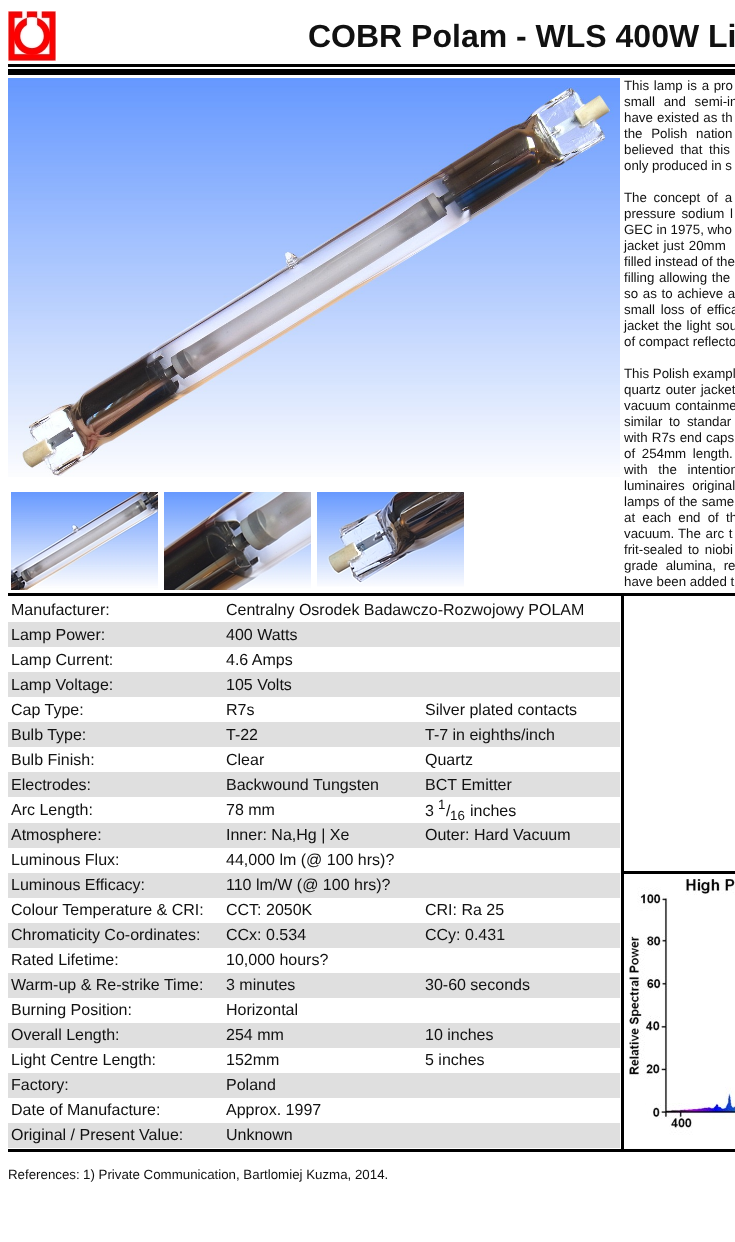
<svg xmlns="http://www.w3.org/2000/svg" width="735" height="1242">
	<rect width="100%" height="100%" fill="#FFFFFF" />
	<image x="8" y="11" width="48" height="50" href="assets/img1.png" />
	<text x="308" y="47" font-family="Liberation Sans" font-size="32" font-weight="700" fill="#111111">COBR Polam - WLS 400W Li</text>
	<rect x="8" y="64" width="727" height="3" fill="#000000" />
	<rect x="8" y="69" width="727" height="6" fill="#000000" />
	<image x="11" y="492" width="147" height="98" href="assets/img2.png" />
	<image x="164" y="492" width="147" height="98" href="assets/img3.png" />
	<image x="317" y="492" width="147" height="95" href="assets/img4.png" />
	<image x="8" y="78" width="612" height="399" href="assets/img5.png" />
	<g font-family="Liberation Sans" font-size="13.3" fill="#111111">
		<text x="624" y="90" word-spacing="1">This lamp is a pro</text>
		<text x="624" y="106" word-spacing="5">small and semi-in</text>
		<text x="624" y="122" word-spacing="0.5">have existed as th</text>
		<text x="624" y="138" word-spacing="5">the Polish nation</text>
		<text x="624" y="154" word-spacing="3">believed that this</text>
		<text x="624" y="170">only produced in s</text>
		<text x="624" y="202" word-spacing="3">The concept of a</text>
		<text x="624" y="218" word-spacing="2">pressure sodium l</text>
		<text x="624" y="234">GEC in 1975, who</text>
		<text x="624" y="250" word-spacing="1">jacket just 20mm</text>
		<text x="624" y="266">filled instead of the</text>
		<text x="624" y="282" word-spacing="1">filling allowing the</text>
		<text x="624" y="298" word-spacing="1">so as to achieve a</text>
		<text x="624" y="314" word-spacing="2">small loss of effica</text>
		<text x="624" y="330" word-spacing="1">jacket the light sou</text>
		<text x="624" y="346">of compact reflecto</text>
		<text x="624" y="378">This Polish exampl</text>
		<text x="624" y="394" word-spacing="1">quartz outer jacket</text>
		<text x="624" y="410" word-spacing="1">vacuum containme</text>
		<text x="624" y="426" word-spacing="3">similar to standar</text>
		<text x="624" y="442" word-spacing="0.5">with R7s end caps</text>
		<text x="624" y="458" word-spacing="3">of 254mm length.</text>
		<text x="624" y="474" word-spacing="7">with the intention</text>
		<text x="624" y="490" word-spacing="4">luminaires original</text>
		<text x="624" y="506" word-spacing="0.5">lamps of the same</text>
		<text x="624" y="522" word-spacing="3.5">at each end of th</text>
		<text x="624" y="538">vacuum.</text>
		<text x="678" y="538" word-spacing="1">The arc t</text>
		<text x="624" y="554" word-spacing="2">frit-sealed to niobi</text>
		<text x="624" y="570" word-spacing="4">grade alumina, re</text>
		<text x="624" y="586">have been added t</text>
	</g>
	<rect x="8" y="593" width="727" height="3" fill="#000000" />
	<rect x="8" y="1149" width="727" height="3" fill="#000000" />
	<g font-family="Liberation Sans" font-size="16" fill="#111111">
		<text x="11" y="615">Manufacturer:</text>
		<text x="226" y="615">Centralny Osrodek Badawczo-Rozwojowy POLAM</text>
	</g>
	<rect x="8" y="622" width="612" height="25" fill="#DFDFDF" />
	<g font-family="Liberation Sans" font-size="16" fill="#111111">
		<text x="11" y="640">Lamp Power:</text>
		<text x="226" y="640">400 Watts</text>
		<text x="11" y="665">Lamp Current:</text>
		<text x="226" y="665">4.6 Amps</text>
	</g>
	<rect x="8" y="672" width="612" height="25" fill="#DFDFDF" />
	<g font-family="Liberation Sans" font-size="16" fill="#111111">
		<text x="11" y="690">Lamp Voltage:</text>
		<text x="226" y="690">105 Volts</text>
		<text x="11" y="715">Cap Type:</text>
		<text x="226" y="715">R7s</text>
		<text x="425" y="715">Silver plated contacts</text>
	</g>
	<rect x="8" y="722" width="612" height="25" fill="#DFDFDF" />
	<g font-family="Liberation Sans" font-size="16" fill="#111111">
		<text x="11" y="740">Bulb Type:</text>
		<text x="226" y="740">T-22</text>
		<text x="425" y="740">T-7 in eighths/inch</text>
		<text x="11" y="765">Bulb Finish:</text>
		<text x="226" y="765">Clear</text>
		<text x="425" y="765">Quartz</text>
	</g>
	<rect x="8" y="772" width="612" height="25" fill="#DFDFDF" />
	<g font-family="Liberation Sans" font-size="16" fill="#111111">
		<text x="11" y="790">Electrodes:</text>
		<text x="226" y="790">Backwound Tungsten</text>
		<text x="425" y="790">BCT Emitter</text>
		<text x="11" y="815">Arc Length:</text>
		<text x="226" y="815">78 mm</text>
		<text x="425" y="816">3</text>
	</g>
	<text x="438" y="809" font-family="Liberation Sans" font-size="13.3" fill="#111111">1</text>
	<text x="446" y="816" font-family="Liberation Sans" font-size="16" fill="#111111">/</text>
	<text x="450" y="820" font-family="Liberation Sans" font-size="13.3" fill="#111111">16</text>
	<text x="470" y="816" font-family="Liberation Sans" font-size="16" fill="#111111">inches</text>
	<rect x="8" y="823" width="612" height="25" fill="#DFDFDF" />
	<g font-family="Liberation Sans" font-size="16" fill="#111111">
		<text x="11" y="840">Atmosphere:</text>
		<text x="226" y="840">Inner: Na,Hg | Xe</text>
		<text x="425" y="840">Outer: Hard Vacuum</text>
		<text x="11" y="865">Luminous Flux:</text>
		<text x="226" y="865">44,000 lm (@ 100 hrs)?</text>
	</g>
	<rect x="8" y="873" width="612" height="25" fill="#DFDFDF" />
	<g font-family="Liberation Sans" font-size="16" fill="#111111">
		<text x="11" y="890">Luminous Efficacy:</text>
		<text x="226" y="890">110 lm/W (@ 100 hrs)?</text>
		<text x="11" y="915">Colour Temperature &amp; CRI:</text>
		<text x="226" y="915">CCT: 2050K</text>
		<text x="425" y="915">CRI: Ra 25</text>
	</g>
	<rect x="8" y="923" width="612" height="25" fill="#DFDFDF" />
	<g font-family="Liberation Sans" font-size="16" fill="#111111">
		<text x="11" y="940">Chromaticity Co-ordinates:</text>
		<text x="226" y="940">CCx: 0.534</text>
		<text x="425" y="940">CCy: 0.431</text>
		<text x="11" y="965">Rated Lifetime:</text>
		<text x="226" y="965">10,000 hours?</text>
	</g>
	<rect x="8" y="973" width="612" height="25" fill="#DFDFDF" />
	<g font-family="Liberation Sans" font-size="16" fill="#111111">
		<text x="11" y="990">Warm-up &amp; Re-strike Time:</text>
		<text x="226" y="990">3 minutes</text>
		<text x="425" y="990">30-60 seconds</text>
		<text x="11" y="1015">Burning Position:</text>
		<text x="226" y="1015">Horizontal</text>
	</g>
	<rect x="8" y="1023" width="612" height="25" fill="#DFDFDF" />
	<g font-family="Liberation Sans" font-size="16" fill="#111111">
		<text x="11" y="1040">Overall Length:</text>
		<text x="226" y="1040">254 mm</text>
		<text x="425" y="1040">10 inches</text>
		<text x="11" y="1065">Light Centre Length:</text>
		<text x="226" y="1065">152mm</text>
		<text x="425" y="1065">5 inches</text>
	</g>
	<rect x="8" y="1073" width="612" height="25" fill="#DFDFDF" />
	<g font-family="Liberation Sans" font-size="16" fill="#111111">
		<text x="11" y="1090">Factory:</text>
		<text x="226" y="1090">Poland</text>
		<text x="11" y="1115">Date of Manufacture:</text>
		<text x="226" y="1115">Approx. 1997</text>
	</g>
	<rect x="8" y="1123" width="612" height="25" fill="#DFDFDF" />
	<g font-family="Liberation Sans" font-size="16" fill="#111111">
		<text x="11" y="1140">Original / Present Value:</text>
		<text x="226" y="1140">Unknown</text>
	</g>
	<rect x="621" y="871" width="114" height="3" fill="#000000" />
	<rect x="621" y="593" width="3" height="559" fill="#000000" />
	<image x="629" y="879" width="106" height="256" href="assets/img6.png" />
	<g font-family="Liberation Sans" font-size="13.3" fill="#111111">
		<text x="8" y="1179">References:</text>
		<text x="83" y="1179">1) Private Communication, Bartlomiej Kuzma, 2014.</text>
	</g>
</svg>
